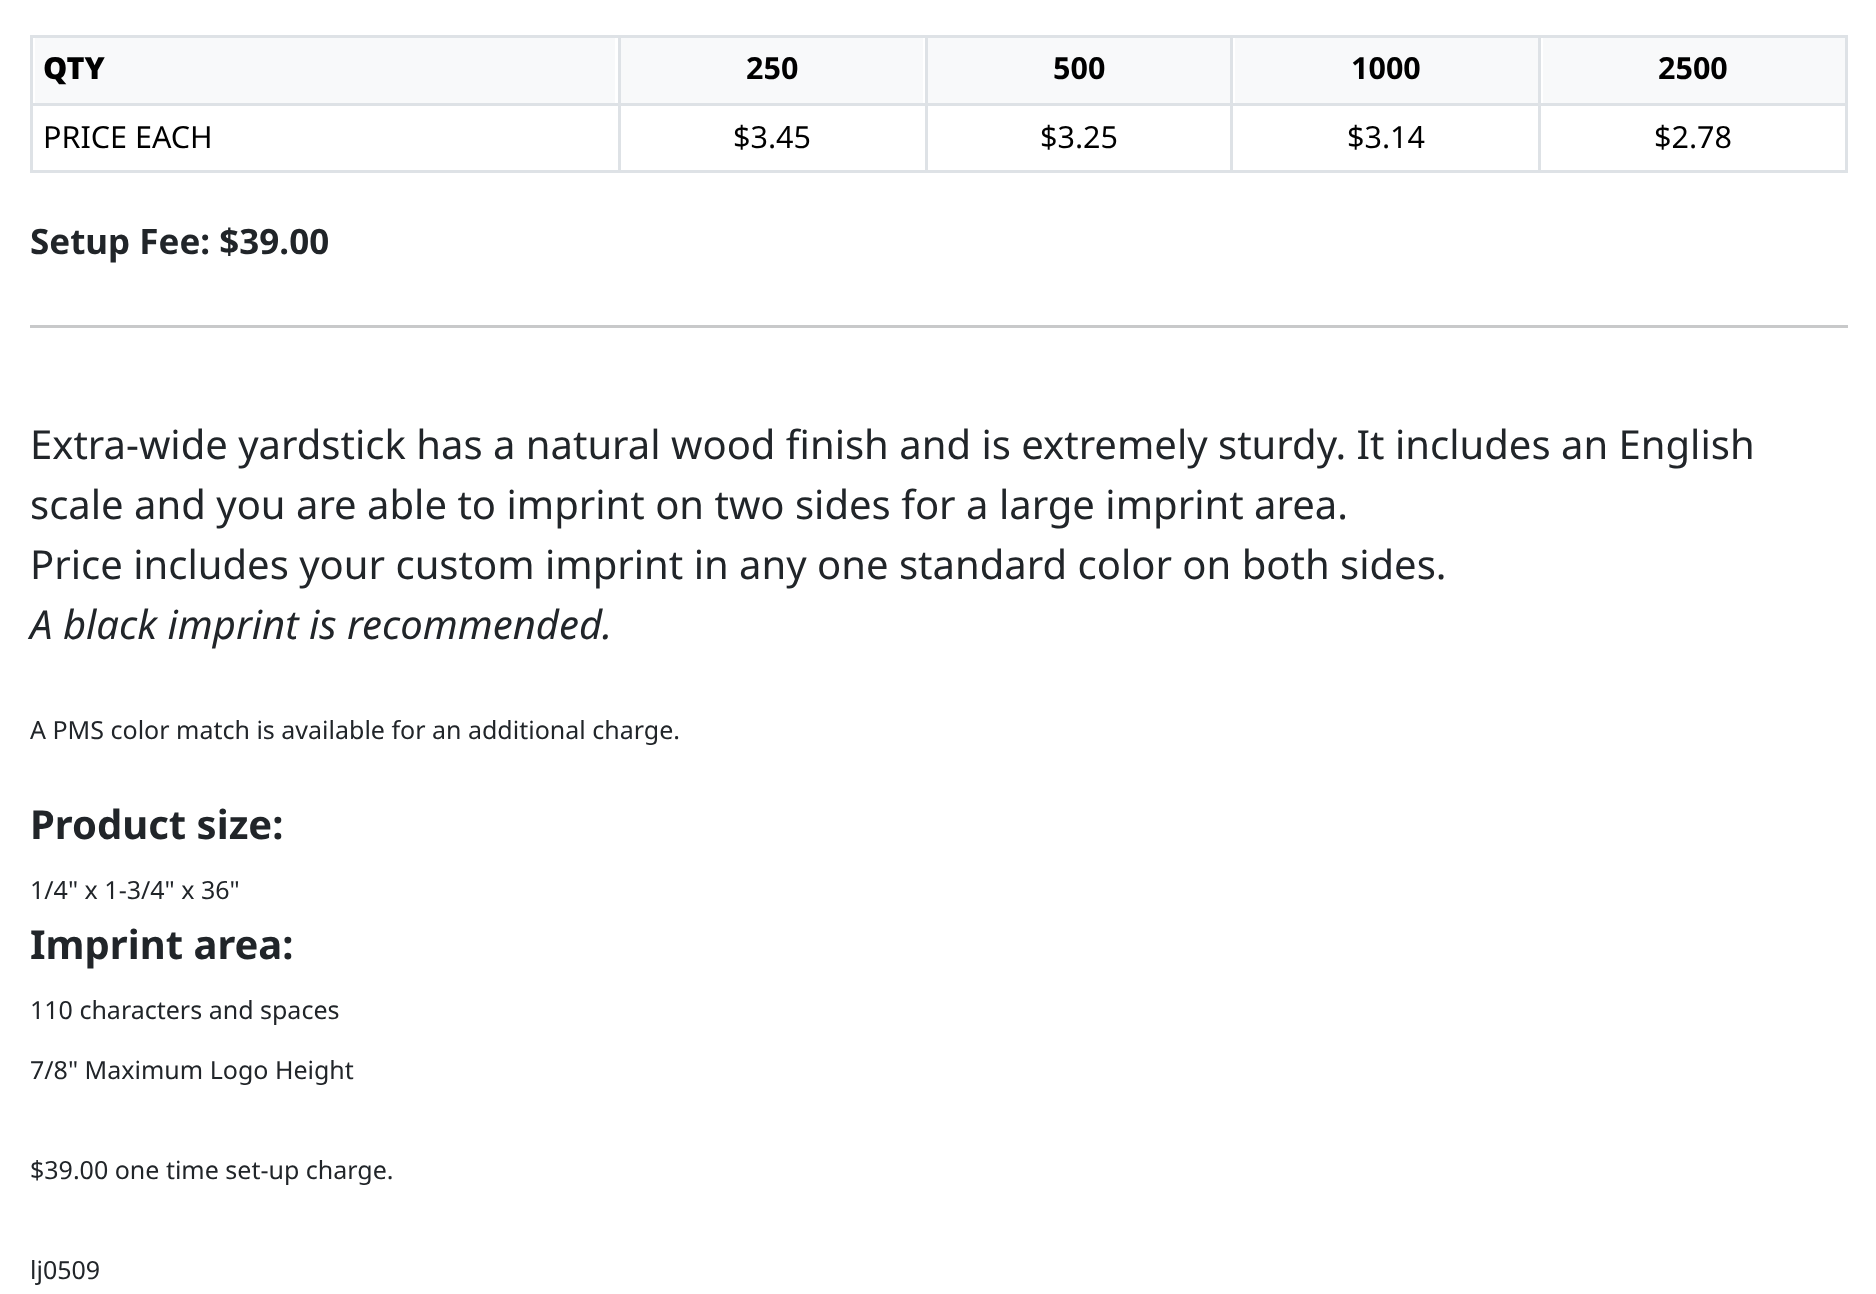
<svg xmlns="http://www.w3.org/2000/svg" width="1876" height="1294">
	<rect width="100%" height="100%" fill="#FFFFFF" />
	<rect x="30" y="35" width="1818" height="3" fill="#DEE2E6" />
	<rect x="35" y="38" width="580" height="65" fill="#F8F9FA" />
	<text x="43" y="79" font-family="Noto Sans" font-size="30.5" font-weight="900" fill="#000000">QTY</text>
	<rect x="621" y="38" width="302" height="65" fill="#F8F9FA" />
	<text x="746" y="79" font-family="Noto Sans" font-size="30.5" font-weight="700" fill="#000000">250</text>
	<rect x="928" y="38" width="302" height="65" fill="#F8F9FA" />
	<text x="1053" y="79" font-family="Noto Sans" font-size="30.5" font-weight="700" fill="#000000">500</text>
	<rect x="1235" y="38" width="303" height="65" fill="#F8F9FA" />
	<text x="1351" y="79" font-family="Noto Sans" font-size="30.5" font-weight="700" fill="#000000">1000</text>
	<rect x="1543" y="38" width="302" height="65" fill="#F8F9FA" />
	<text x="1658" y="79" font-family="Noto Sans" font-size="30.5" font-weight="700" fill="#000000">2500</text>
	<rect x="30" y="103" width="1818" height="3" fill="#DEE2E6" />
	<rect x="30" y="170" width="1818" height="3" fill="#DEE2E6" />
	<rect x="30" y="35" width="3" height="138" fill="#DEE2E6" />
	<text x="43" y="148" font-family="Noto Sans" font-size="30.5" fill="#000000">PRICE EACH</text>
	<rect x="618" y="35" width="3" height="138" fill="#DEE2E6" />
	<text x="733" y="148" font-family="Noto Sans" font-size="30.5" fill="#000000">$3.45</text>
	<rect x="925" y="35" width="3" height="138" fill="#DEE2E6" />
	<text x="1040" y="148" font-family="Noto Sans" font-size="30.5" fill="#000000">$3.25</text>
	<rect x="1230" y="35" width="3" height="138" fill="#DEE2E6" />
	<text x="1347" y="148" font-family="Noto Sans" font-size="30.5" fill="#000000">$3.14</text>
	<rect x="1845" y="35" width="3" height="138" fill="#DEE2E6" />
	<rect x="1538" y="35" width="3" height="138" fill="#DEE2E6" />
	<text x="1654" y="148" font-family="Noto Sans" font-size="30.5" fill="#000000">$2.78</text>
	<text x="30" y="254" font-family="Noto Sans" font-size="35" font-weight="700" fill="#212529">Setup Fee: $39.00</text>
	<rect x="30" y="325" width="1818" height="3" fill="#C8C9CA" />
	<g font-family="Noto Sans" font-size="40" fill="#212529">
		<text x="30" y="459">Extra-wide yardstick has a natural wood finish and is extremely sturdy. It includes an English</text>
		<text x="30" y="519">scale and you are able to imprint on two sides for a large imprint area.</text>
		<text x="30" y="579">Price includes your custom imprint in any one standard color on both sides.</text>
	</g>
	<text x="30" y="639" font-family="Noto Sans" font-size="40" font-style="italic" fill="#212529">A black imprint is recommended.</text>
	<text x="30" y="739" font-family="Noto Sans" font-size="25" fill="#212529">A PMS color match is available for an additional charge.</text>
	<text x="30" y="839" font-family="Noto Sans" font-size="40" font-weight="700" fill="#212529">Product size:</text>
	<text x="30" y="899" font-family="Noto Sans" font-size="25" fill="#212529">1/4" x 1-3/4" x 36"</text>
	<text x="30" y="959" font-family="Noto Sans" font-size="40" font-weight="700" fill="#212529">Imprint area:</text>
	<g font-family="Noto Sans" font-size="25" fill="#212529">
		<text x="30" y="1019">110 characters and spaces</text>
		<text x="30" y="1079">7/8" Maximum Logo Height</text>
		<text x="30" y="1179">$39.00 one time set-up charge.</text>
		<text x="30" y="1279">lj0509</text>
	</g>
</svg>
